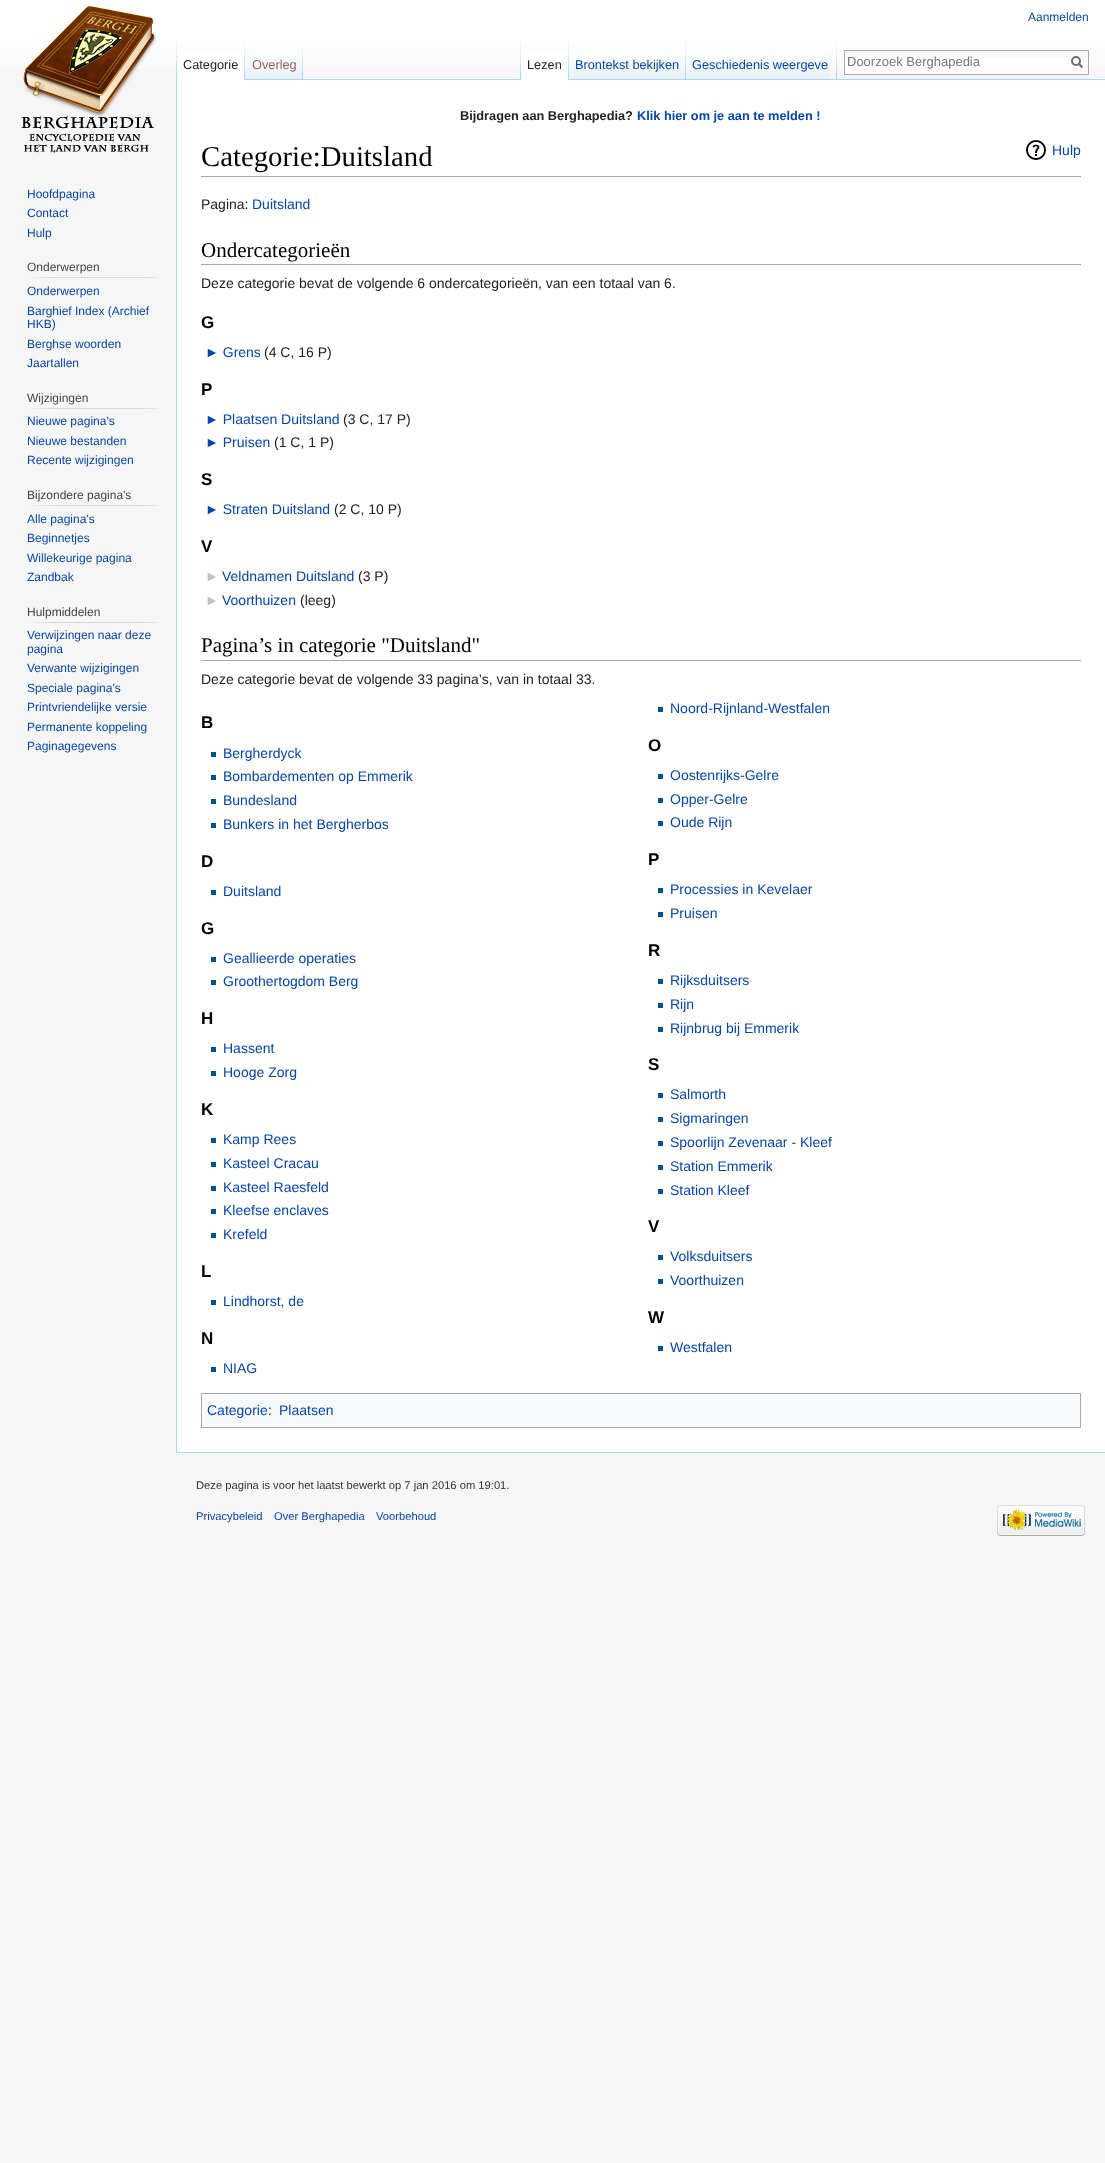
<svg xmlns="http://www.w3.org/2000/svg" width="1105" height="2163">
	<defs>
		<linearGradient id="g1" gradientUnits="userSpaceOnUse" x1="553" y1="0" x2="553" y2="80"><stop offset="0.5" stop-color="#FFFFFF" /><stop offset="1" stop-color="#F6F6F6" /></linearGradient>
	</defs>
	<rect width="100%" height="100%" fill="#F6F6F6" />
	<rect x="0" y="0" width="1105" height="69" fill="url(#g1)" />
	<text x="1028" y="21" font-family="Liberation Sans" font-size="12" fill="#0645AD">Aanmelden</text>
	<image x="176" y="40" width="1" height="39" href="assets/img1.png" />
	<rect x="177" y="51" width="67" height="29" fill="#FFFFFF" />
	<image x="244" y="40" width="1" height="40" href="assets/img2.png" />
	<text x="183" y="69" font-family="Liberation Sans" font-size="12.75" fill="#222222">Categorie</text>
	<image x="245" y="40" width="58" height="40" href="assets/img3.png" />
	<image x="302" y="40" width="1" height="39" href="assets/img1.png" />
	<text x="252" y="69" font-family="Liberation Sans" font-size="12.75" fill="#A55858">Overleg</text>
	<image x="520" y="40" width="1" height="39" href="assets/img1.png" />
	<rect x="303" y="79" width="802" height="1" fill="#A7D7F9" />
	<rect x="521" y="51" width="47" height="29" fill="#FFFFFF" />
	<image x="568" y="40" width="1" height="40" href="assets/img2.png" />
	<text x="527" y="69" font-family="Liberation Sans" font-size="12.75" fill="#222222">Lezen</text>
	<image x="569" y="40" width="117" height="40" href="assets/img4.png" />
	<image x="685" y="40" width="1" height="39" href="assets/img1.png" />
	<text x="575" y="69" font-family="Liberation Sans" font-size="12.75" fill="#0645AD">Brontekst bekijken</text>
	<image x="686" y="40" width="144" height="40" href="assets/img5.png" />
	<text x="692" y="69" font-family="Liberation Sans" font-size="12.75" fill="#0645AD">Geschiedenis weergeve</text>
	<image x="836" y="40" width="1" height="39" href="assets/img1.png" />
	<rect x="845" y="59" width="243" height="15" fill="#FFFFFF" />
	<image x="845" y="51" width="243" height="8" href="assets/img6.png" />
	<rect x="844.5" y="50.5" width="244" height="24" fill="none" stroke="#AAAAAA" />
	<text x="847" y="66" font-family="Liberation Sans" font-size="13" fill="#72777D">Doorzoek Berghapedia</text>
	<path d="M1082.5 67.5L1078.5 63.5" fill="none" stroke="#6C6C6C" stroke-width="2" />
	<circle cx="1076" cy="61" r="4" fill="none" stroke="#6C6C6C" stroke-width="2" />
	<image x="21" y="5" width="135" height="148" href="assets/img7.png" />
	<g font-family="Liberation Sans" font-size="12" fill="#0645AD">
		<text x="27" y="198">Hoofdpagina</text>
		<text x="27" y="217">Contact</text>
		<text x="27" y="237">Hulp</text>
	</g>
	<text x="27" y="271" font-family="Liberation Sans" font-size="12" fill="#444444">Onderwerpen</text>
	<image x="30" y="277" width="128" height="1" href="assets/img8.png" />
	<g font-family="Liberation Sans" font-size="12" fill="#0645AD">
		<text x="27" y="295">Onderwerpen</text>
		<text x="27" y="315">Barghief Index (Archief</text>
		<text x="27" y="328">HKB)</text>
		<text x="27" y="348">Berghse woorden</text>
		<text x="27" y="367">Jaartallen</text>
	</g>
	<text x="27" y="402" font-family="Liberation Sans" font-size="12" fill="#444444">Wijzigingen</text>
	<image x="30" y="408" width="128" height="1" href="assets/img8.png" />
	<g font-family="Liberation Sans" font-size="12" fill="#0645AD">
		<text x="27" y="425">Nieuwe pagina's</text>
		<text x="27" y="445">Nieuwe bestanden</text>
		<text x="27" y="464">Recente wijzigingen</text>
	</g>
	<text x="27" y="499" font-family="Liberation Sans" font-size="12" fill="#444444">Bijzondere pagina's</text>
	<image x="30" y="505" width="128" height="1" href="assets/img8.png" />
	<g font-family="Liberation Sans" font-size="12" fill="#0645AD">
		<text x="27" y="523">Alle pagina's</text>
		<text x="27" y="542">Beginnetjes</text>
		<text x="27" y="562">Willekeurige pagina</text>
		<text x="27" y="581">Zandbak</text>
	</g>
	<text x="27" y="616" font-family="Liberation Sans" font-size="12" fill="#444444">Hulpmiddelen</text>
	<image x="30" y="622" width="128" height="1" href="assets/img8.png" />
	<g font-family="Liberation Sans" font-size="12" fill="#0645AD">
		<text x="27" y="639">Verwijzingen naar deze</text>
		<text x="27" y="653">pagina</text>
		<text x="27" y="672">Verwante wijzigingen</text>
		<text x="27" y="692">Speciale pagina's</text>
		<text x="27" y="711">Printvriendelijke versie</text>
		<text x="27" y="731">Permanente koppeling</text>
		<text x="27" y="750">Paginagegevens</text>
	</g>
	<rect x="177" y="80" width="928" height="1372" fill="#FFFFFF" />
	<rect x="176" y="1452" width="929" height="1" fill="#A7D7F9" />
	<rect x="176" y="79" width="1" height="1374" fill="#A7D7F9" />
	<text x="460" y="120" font-family="Liberation Sans" font-size="12.75" font-weight="700" fill="#222222">Bijdragen aan Berghapedia?</text>
	<text x="637" y="120" font-family="Liberation Sans" font-size="12.75" font-weight="700" fill="#0645AD">Klik hier om je aan te melden !</text>
	<rect x="201" y="176" width="880" height="1" fill="#A2A9B1" />
	<text x="201" y="166" font-family="Liberation Serif" font-size="28.75" fill="#000000">Categorie:Duitsland</text>
	<image x="1026" y="140" width="20" height="20" href="assets/img9.png" />
	<text x="1052" y="155" font-family="Liberation Sans" font-size="14" fill="#0645AD">Hulp</text>
	<text x="201" y="209" font-family="Liberation Sans" font-size="14" fill="#222222">Pagina:</text>
	<text x="252" y="209" font-family="Liberation Sans" font-size="14" fill="#0645AD">Duitsland</text>
	<rect x="201" y="264" width="880" height="1" fill="#A2A9B1" />
	<text x="201" y="257" font-family="Liberation Serif" font-size="21" fill="#000000">Ondercategorieën</text>
	<text x="201" y="288" font-family="Liberation Sans" font-size="14" fill="#222222">Deze categorie bevat de volgende 6 ondercategorieën, van een totaal van 6.</text>
	<text x="201" y="328" font-family="Liberation Sans" font-size="17" font-weight="700" fill="#000000">G</text>
	<text x="205" y="357" font-family="Liberation Sans" font-size="14" fill="#0645AD">► Grens</text>
	<text x="264" y="357" font-family="Liberation Sans" font-size="14" fill="#222222">(4 C, 16 P)</text>
	<text x="201" y="395" font-family="Liberation Sans" font-size="17" font-weight="700" fill="#000000">P</text>
	<text x="205" y="424" font-family="Liberation Sans" font-size="14" fill="#0645AD">► Plaatsen Duitsland</text>
	<text x="343" y="424" font-family="Liberation Sans" font-size="14" fill="#222222">(3 C, 17 P)</text>
	<text x="205" y="447" font-family="Liberation Sans" font-size="14" fill="#0645AD">► Pruisen</text>
	<text x="274" y="447" font-family="Liberation Sans" font-size="14" fill="#222222">(1 C, 1 P)</text>
	<text x="201" y="485" font-family="Liberation Sans" font-size="17" font-weight="700" fill="#000000">S</text>
	<text x="205" y="514" font-family="Liberation Sans" font-size="14" fill="#0645AD">► Straten Duitsland</text>
	<text x="334" y="514" font-family="Liberation Sans" font-size="14" fill="#222222">(2 C, 10 P)</text>
	<text x="201" y="552" font-family="Liberation Sans" font-size="17" font-weight="700" fill="#000000">V</text>
	<text x="205" y="581" font-family="Liberation Sans" font-size="14" fill="#C0C0C0">►</text>
	<text x="222" y="581" font-family="Liberation Sans" font-size="14" fill="#0645AD">Veldnamen Duitsland</text>
	<text x="358" y="581" font-family="Liberation Sans" font-size="14" fill="#222222">(3 P)</text>
	<text x="205" y="605" font-family="Liberation Sans" font-size="14" fill="#C0C0C0">►</text>
	<text x="222" y="605" font-family="Liberation Sans" font-size="14" fill="#0645AD">Voorthuizen</text>
	<text x="300" y="605" font-family="Liberation Sans" font-size="14" fill="#222222">(leeg)</text>
	<rect x="201" y="660" width="880" height="1" fill="#A2A9B1" />
	<text x="201" y="652" font-family="Liberation Serif" font-size="21" fill="#000000">Pagina’s in categorie "Duitsland"</text>
	<text x="201" y="684" font-family="Liberation Sans" font-size="14" fill="#222222">Deze categorie bevat de volgende 33 pagina’s, van in totaal 33.</text>
	<text x="201" y="1344" font-family="Liberation Sans" font-size="17" font-weight="700" fill="#000000">N</text>
	<rect x="658" y="707" width="5" height="5" fill="#00528C" />
	<text x="670" y="713" font-family="Liberation Sans" font-size="14" fill="#0645AD">Noord-Rijnland-Westfalen</text>
	<rect x="211" y="1367" width="5" height="5" fill="#00528C" />
	<text x="223" y="1373" font-family="Liberation Sans" font-size="14" fill="#0645AD">NIAG</text>
	<text x="201" y="728" font-family="Liberation Sans" font-size="17" font-weight="700" fill="#000000">B</text>
	<rect x="211" y="752" width="5" height="5" fill="#00528C" />
	<text x="223" y="758" font-family="Liberation Sans" font-size="14" fill="#0645AD">Bergherdyck</text>
	<rect x="211" y="775" width="5" height="5" fill="#00528C" />
	<text x="223" y="781" font-family="Liberation Sans" font-size="14" fill="#0645AD">Bombardementen op Emmerik</text>
	<rect x="211" y="799" width="5" height="5" fill="#00528C" />
	<text x="223" y="805" font-family="Liberation Sans" font-size="14" fill="#0645AD">Bundesland</text>
	<rect x="211" y="823" width="5" height="5" fill="#00528C" />
	<text x="223" y="829" font-family="Liberation Sans" font-size="14" fill="#0645AD">Bunkers in het Bergherbos</text>
	<text x="648" y="751" font-family="Liberation Sans" font-size="17" font-weight="700" fill="#000000">O</text>
	<rect x="658" y="774" width="5" height="5" fill="#00528C" />
	<text x="670" y="780" font-family="Liberation Sans" font-size="14" fill="#0645AD">Oostenrijks-Gelre</text>
	<rect x="658" y="798" width="5" height="5" fill="#00528C" />
	<text x="670" y="804" font-family="Liberation Sans" font-size="14" fill="#0645AD">Opper-Gelre</text>
	<rect x="658" y="821" width="5" height="5" fill="#00528C" />
	<text x="670" y="827" font-family="Liberation Sans" font-size="14" fill="#0645AD">Oude Rijn</text>
	<text x="201" y="867" font-family="Liberation Sans" font-size="17" font-weight="700" fill="#000000">D</text>
	<rect x="211" y="890" width="5" height="5" fill="#00528C" />
	<text x="223" y="896" font-family="Liberation Sans" font-size="14" fill="#0645AD">Duitsland</text>
	<text x="648" y="865" font-family="Liberation Sans" font-size="17" font-weight="700" fill="#000000">P</text>
	<rect x="658" y="888" width="5" height="5" fill="#00528C" />
	<text x="670" y="894" font-family="Liberation Sans" font-size="14" fill="#0645AD">Processies in Kevelaer</text>
	<rect x="658" y="912" width="5" height="5" fill="#00528C" />
	<text x="670" y="918" font-family="Liberation Sans" font-size="14" fill="#0645AD">Pruisen</text>
	<text x="201" y="934" font-family="Liberation Sans" font-size="17" font-weight="700" fill="#000000">G</text>
	<rect x="211" y="957" width="5" height="5" fill="#00528C" />
	<text x="223" y="963" font-family="Liberation Sans" font-size="14" fill="#0645AD">Geallieerde operaties</text>
	<rect x="211" y="980" width="5" height="5" fill="#00528C" />
	<text x="223" y="986" font-family="Liberation Sans" font-size="14" fill="#0645AD">Groothertogdom Berg</text>
	<text x="648" y="956" font-family="Liberation Sans" font-size="17" font-weight="700" fill="#000000">R</text>
	<rect x="658" y="979" width="5" height="5" fill="#00528C" />
	<text x="670" y="985" font-family="Liberation Sans" font-size="14" fill="#0645AD">Rijksduitsers</text>
	<rect x="658" y="1003" width="5" height="5" fill="#00528C" />
	<text x="670" y="1009" font-family="Liberation Sans" font-size="14" fill="#0645AD">Rijn</text>
	<rect x="658" y="1027" width="5" height="5" fill="#00528C" />
	<text x="670" y="1033" font-family="Liberation Sans" font-size="14" fill="#0645AD">Rijnbrug bij Emmerik</text>
	<text x="201" y="1024" font-family="Liberation Sans" font-size="17" font-weight="700" fill="#000000">H</text>
	<rect x="211" y="1047" width="5" height="5" fill="#00528C" />
	<text x="223" y="1053" font-family="Liberation Sans" font-size="14" fill="#0645AD">Hassent</text>
	<rect x="211" y="1071" width="5" height="5" fill="#00528C" />
	<text x="223" y="1077" font-family="Liberation Sans" font-size="14" fill="#0645AD">Hooge Zorg</text>
	<text x="201" y="1115" font-family="Liberation Sans" font-size="17" font-weight="700" fill="#000000">K</text>
	<rect x="211" y="1138" width="5" height="5" fill="#00528C" />
	<text x="223" y="1144" font-family="Liberation Sans" font-size="14" fill="#0645AD">Kamp Rees</text>
	<rect x="211" y="1162" width="5" height="5" fill="#00528C" />
	<text x="223" y="1168" font-family="Liberation Sans" font-size="14" fill="#0645AD">Kasteel Cracau</text>
	<rect x="211" y="1186" width="5" height="5" fill="#00528C" />
	<text x="223" y="1192" font-family="Liberation Sans" font-size="14" fill="#0645AD">Kasteel Raesfeld</text>
	<rect x="211" y="1209" width="5" height="5" fill="#00528C" />
	<text x="223" y="1215" font-family="Liberation Sans" font-size="14" fill="#0645AD">Kleefse enclaves</text>
	<rect x="211" y="1233" width="5" height="5" fill="#00528C" />
	<text x="223" y="1239" font-family="Liberation Sans" font-size="14" fill="#0645AD">Krefeld</text>
	<text x="648" y="1070" font-family="Liberation Sans" font-size="17" font-weight="700" fill="#000000">S</text>
	<rect x="658" y="1093" width="5" height="5" fill="#00528C" />
	<text x="670" y="1099" font-family="Liberation Sans" font-size="14" fill="#0645AD">Salmorth</text>
	<rect x="658" y="1117" width="5" height="5" fill="#00528C" />
	<text x="670" y="1123" font-family="Liberation Sans" font-size="14" fill="#0645AD">Sigmaringen</text>
	<rect x="658" y="1141" width="5" height="5" fill="#00528C" />
	<text x="670" y="1147" font-family="Liberation Sans" font-size="14" fill="#0645AD">Spoorlijn Zevenaar - Kleef</text>
	<rect x="658" y="1165" width="5" height="5" fill="#00528C" />
	<text x="670" y="1171" font-family="Liberation Sans" font-size="14" fill="#0645AD">Station Emmerik</text>
	<rect x="658" y="1189" width="5" height="5" fill="#00528C" />
	<text x="670" y="1195" font-family="Liberation Sans" font-size="14" fill="#0645AD">Station Kleef</text>
	<text x="201" y="1277" font-family="Liberation Sans" font-size="17" font-weight="700" fill="#000000">L</text>
	<rect x="211" y="1300" width="5" height="5" fill="#00528C" />
	<text x="223" y="1306" font-family="Liberation Sans" font-size="14" fill="#0645AD">Lindhorst, de</text>
	<text x="648" y="1232" font-family="Liberation Sans" font-size="17" font-weight="700" fill="#000000">V</text>
	<rect x="658" y="1255" width="5" height="5" fill="#00528C" />
	<text x="670" y="1261" font-family="Liberation Sans" font-size="14" fill="#0645AD">Volksduitsers</text>
	<rect x="658" y="1279" width="5" height="5" fill="#00528C" />
	<text x="670" y="1285" font-family="Liberation Sans" font-size="14" fill="#0645AD">Voorthuizen</text>
	<text x="648" y="1323" font-family="Liberation Sans" font-size="17" font-weight="700" fill="#000000">W</text>
	<rect x="658" y="1346" width="5" height="5" fill="#00528C" />
	<text x="670" y="1352" font-family="Liberation Sans" font-size="14" fill="#0645AD">Westfalen</text>
	<rect x="201.5" y="1393.5" width="879" height="34" fill="#F8F9FA" stroke="#A2A9B1" />
	<text x="207" y="1415" font-family="Liberation Sans" font-size="14" fill="#0645AD">Categorie</text>
	<text x="268" y="1415" font-family="Liberation Sans" font-size="14" fill="#222222">:</text>
	<text x="279" y="1415" font-family="Liberation Sans" font-size="14" fill="#0645AD">Plaatsen</text>
	<text x="196" y="1489" font-family="Liberation Sans" font-size="11.2" fill="#333333">Deze pagina is voor het laatst bewerkt op 7 jan 2016 om 19:01.</text>
	<g font-family="Liberation Sans" font-size="11.2" fill="#0645AD">
		<text x="196" y="1520">Privacybeleid</text>
		<text x="274" y="1520">Over Berghapedia</text>
		<text x="376" y="1520">Voorbehoud</text>
	</g>
	<image x="997" y="1505" width="88" height="31" href="assets/img10.png" />
</svg>
